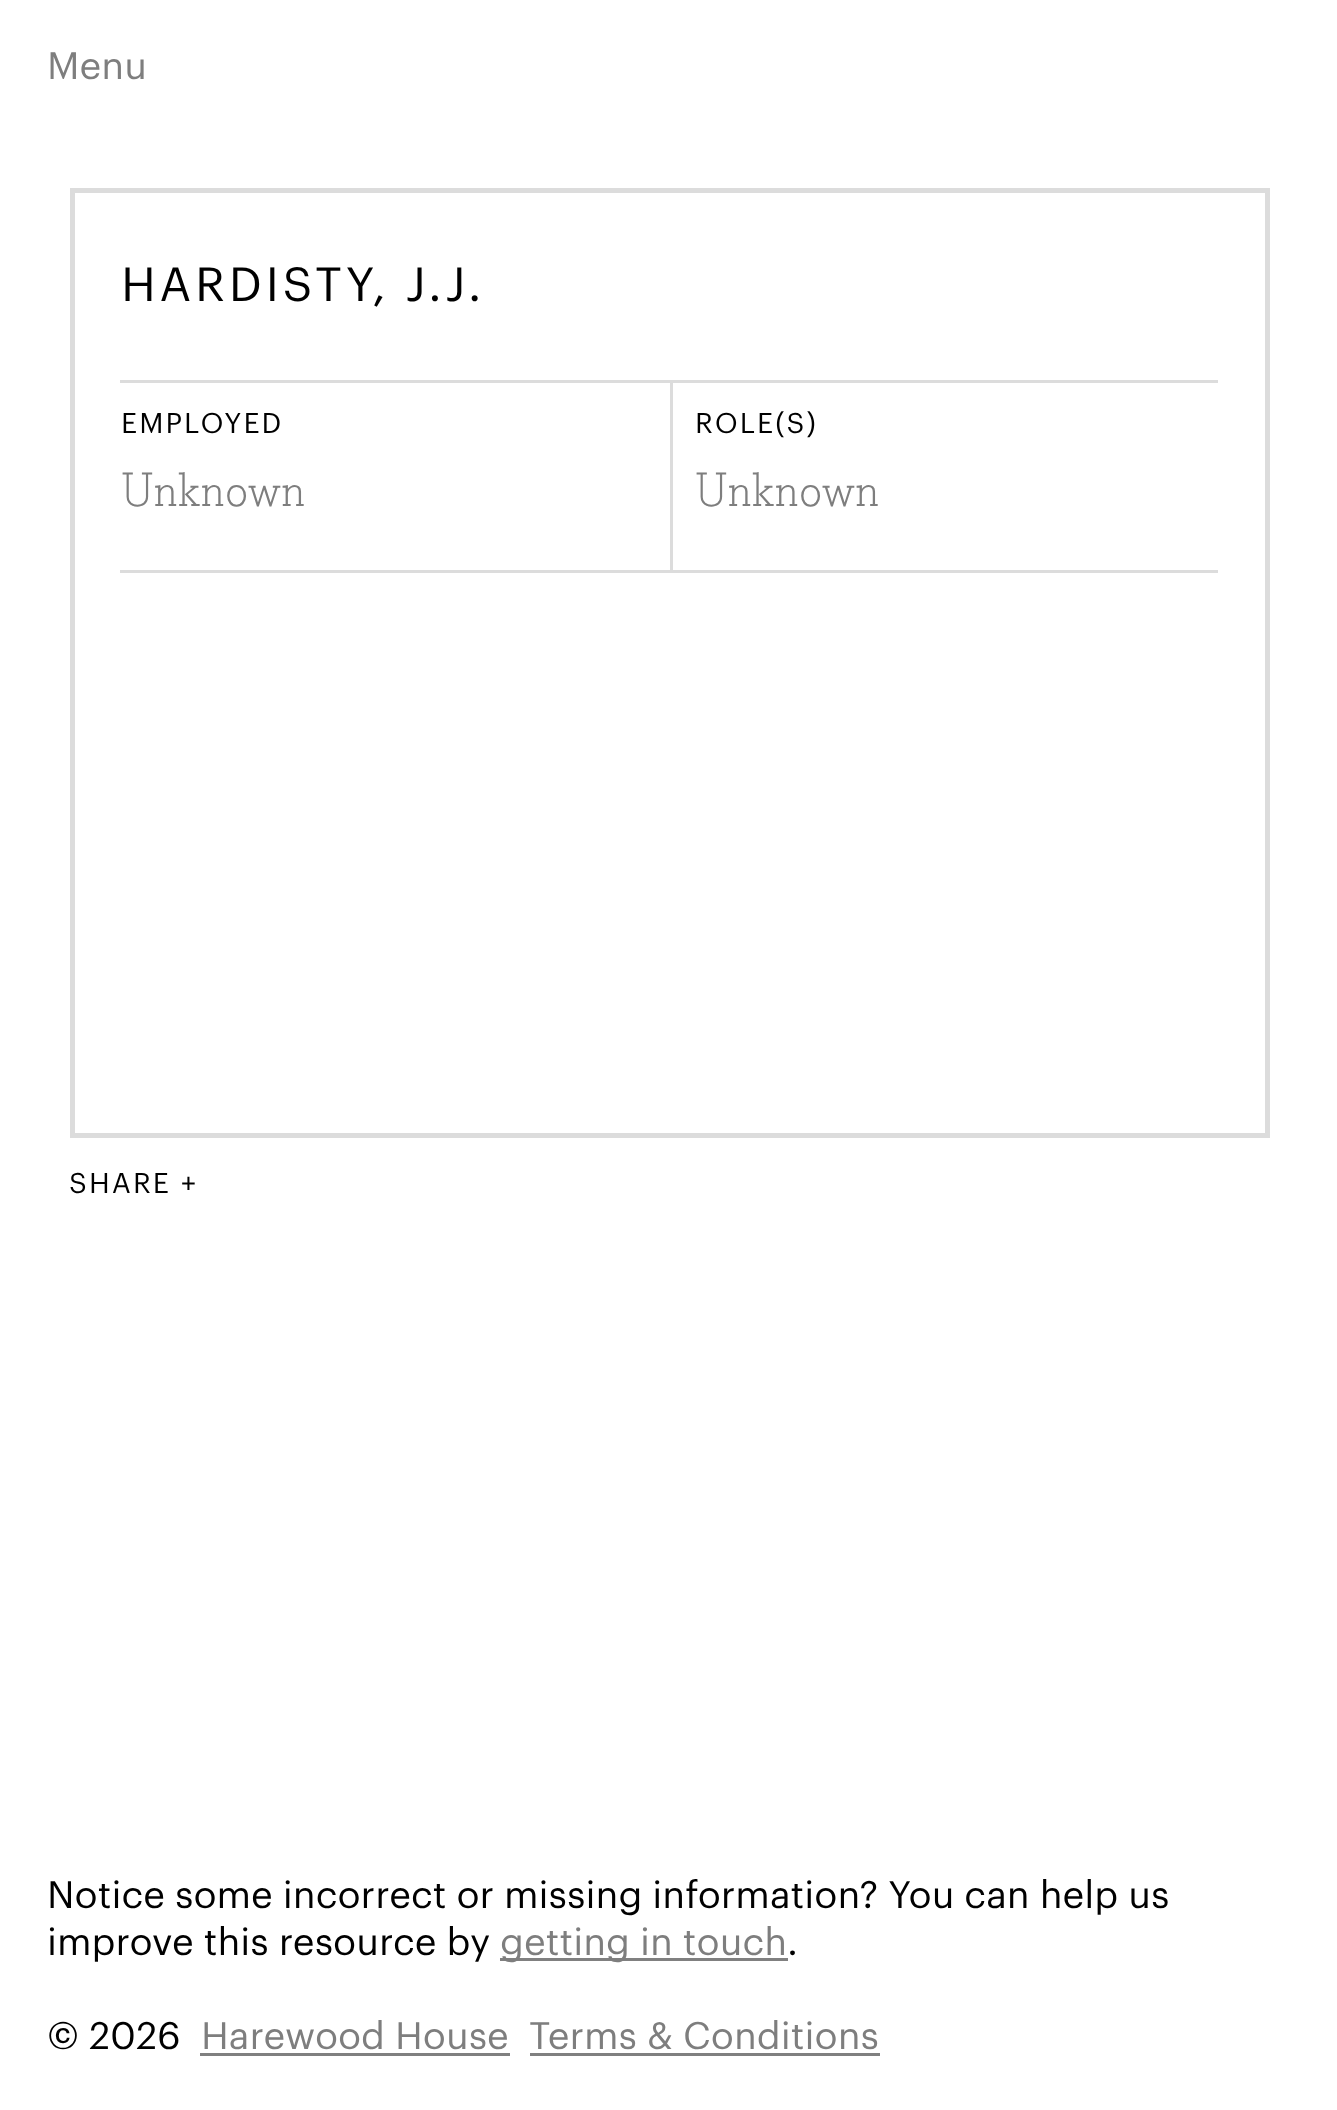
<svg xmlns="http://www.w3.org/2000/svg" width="1337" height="2110">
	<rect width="100%" height="100%" fill="#FFFFFF" />
	<text x="47" y="79" font-family="Graphik" font-size="37.5" fill="#7E7E7E">Menu</text>
	<rect x="72.5" y="190.5" width="1195" height="945" fill="none" stroke="#DCDCDC" stroke-width="5" />
	<text x="121" y="301" font-family="Graphik" font-size="47" letter-spacing="3.5" fill="#000000">HARDISTY, J.J.</text>
	<rect x="120" y="380" width="1098" height="3" fill="#DCDCDC" />
	<rect x="120" y="570" width="1098" height="3" fill="#DCDCDC" />
	<text x="121" y="433" font-family="Graphik" font-size="28" letter-spacing="2" fill="#000000">EMPLOYED</text>
	<text x="121" y="506" font-family="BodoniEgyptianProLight" font-size="47" font-weight="300" fill="#7E7E7E">Unknown</text>
	<rect x="670" y="383" width="3" height="187" fill="#DCDCDC" />
	<text x="695" y="433" font-family="Graphik" font-size="28" letter-spacing="2" fill="#000000">ROLE(S)</text>
	<text x="695" y="506" font-family="BodoniEgyptianProLight" font-size="47" font-weight="300" fill="#7E7E7E">Unknown</text>
	<g font-family="Graphik" font-size="28" letter-spacing="2" fill="#000000">
		<text x="69" y="1193">SHARE</text>
		<text x="181" y="1193">+</text>
	</g>
	<g font-family="Graphik" font-size="37.5" fill="#000000">
		<text x="47" y="1908">Notice some incorrect or missing information? You can help us</text>
		<text x="47" y="1955">improve this resource by</text>
	</g>
	<rect x="500" y="1958" width="288" height="3" fill="#808080" />
	<text x="500" y="1955" font-family="Graphik" font-size="37.5" fill="#7E7E7E">getting in touch</text>
	<g font-family="Graphik" font-size="37.5" fill="#000000">
		<text x="787" y="1955">.</text>
		<text x="47" y="2049">© 2026</text>
	</g>
	<text x="201" y="2049" font-family="Graphik" font-size="37.5" fill="#7E7E7E">Harewood House</text>
	<rect x="200" y="2053" width="310" height="3" fill="#808080" />
	<text x="529" y="2049" font-family="Graphik" font-size="37.5" fill="#7E7E7E">Terms &amp; Conditions</text>
	<rect x="530" y="2053" width="350" height="3" fill="#808080" />
</svg>
